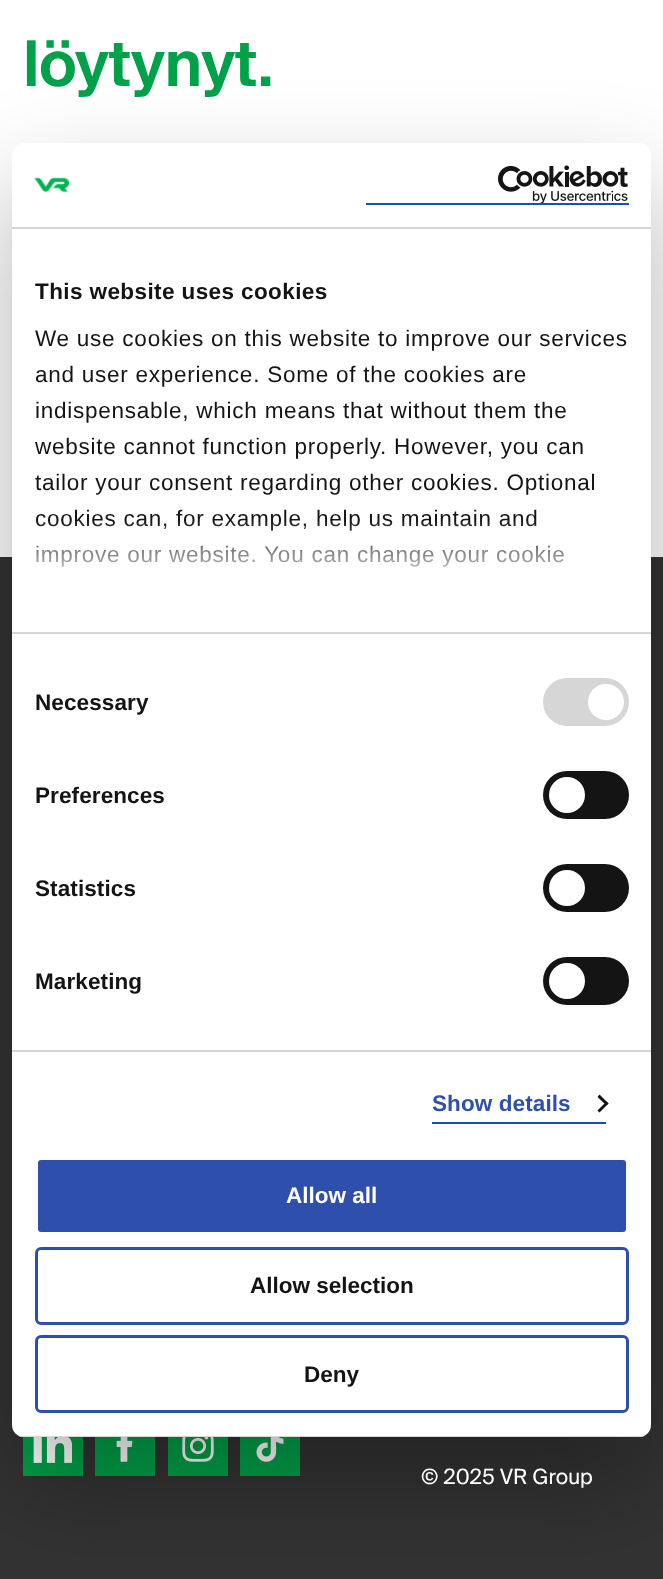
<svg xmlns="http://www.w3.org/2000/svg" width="663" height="1579">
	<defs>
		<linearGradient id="g1" gradientUnits="userSpaceOnUse" x1="322" y1="632" x2="322" y2="519"><stop offset="0" stop-color="#FFFFFF" /><stop offset="0.5" stop-color="#FFFFFF" stop-opacity="0.8" /><stop offset="1" stop-color="#FFFFFF" stop-opacity="0" /></linearGradient>
		<clipPath id="clip1"><rect x="12" y="143" width="639" height="1294" rx="12" /></clipPath>
	</defs>
	<rect width="100%" height="100%" fill="#FFFFFF" />
	<text x="23" y="86" font-family="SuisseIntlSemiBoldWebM" font-size="63" font-weight="600" letter-spacing="-0.25" fill="#00A149">löytynyt.</text>
	<rect x="0" y="557" width="663" height="1022" fill="#333333" />
	<rect x="23" y="1436" width="60" height="40" fill="#00A149" />
	<image x="33" y="1437" width="39" height="26" href="assets/img3.png" />
	<rect x="95" y="1437" width="60" height="39" fill="#00A149" />
	<image x="116" y="1437" width="17" height="25" href="assets/img4.png" />
	<rect x="168" y="1437" width="60" height="39" fill="#00A149" />
	<image x="182" y="1437" width="32" height="25" href="assets/img5.png" />
	<rect x="240" y="1437" width="60" height="39" fill="#00A149" />
	<image x="256" y="1437" width="28" height="25" href="assets/img6.png" />
	<rect x="12" y="191" width="639" height="1294" rx="12" fill="#000000" fill-opacity="0.3" filter="blur(51px)" />
	<rect x="12" y="143" width="639" height="1294" rx="12" fill="#FFFFFF" />
	<rect x="12" y="227" width="639" height="2" fill="#D6D6D6" />
	<image x="34" y="177" width="35" height="16" href="assets/img1.png" />
	<rect x="366" y="203" width="263" height="2" fill="#1B50AF" />
	<image x="498" y="165" width="130" height="38" href="assets/img2.png" />
	<rect x="12" y="632" width="639" height="2" fill="#D6D6D6" />
	<text x="35" y="299" font-family="Liberation Sans" font-size="22.5" font-weight="700" letter-spacing="0.4" fill="#141414">This website uses cookies</text>
	<g font-family="Liberation Sans" font-size="22.5" letter-spacing="0.75" fill="#141414">
		<text x="35" y="346">We use cookies on this website to improve our services</text>
		<text x="35" y="382">and user experience. Some of the cookies are</text>
		<text x="35" y="418">indispensable, which means that without them the</text>
		<text x="35" y="454">website cannot function properly. However, you can</text>
		<text x="35" y="490">tailor your consent regarding other cookies. Optional</text>
		<text x="35" y="526">cookies can, for example, help us maintain and</text>
		<text x="35" y="562">improve our website. You can change your cookie</text>
	</g>
	<rect x="35" y="521" width="529" height="46" fill="url(#g1)" />
	<rect x="12" y="1050" width="639" height="2" fill="#D6D6D6" />
	<text x="35" y="710" font-family="Liberation Sans" font-size="22.5" font-weight="700" letter-spacing="0.1" fill="#141414">Necessary</text>
	<rect x="543" y="678" width="86" height="48" rx="24" fill="#D6D6D6" />
	<circle cx="606" cy="702" r="18" fill="#FFFFFF" />
	<text x="35" y="803" font-family="Liberation Sans" font-size="22.5" font-weight="700" letter-spacing="0.1" fill="#141414">Preferences</text>
	<rect x="543" y="771" width="86" height="48" rx="24" fill="#141414" />
	<circle cx="567" cy="795" r="18" fill="#FFFFFF" />
	<text x="35" y="896" font-family="Liberation Sans" font-size="22.5" font-weight="700" letter-spacing="0.1" fill="#141414">Statistics</text>
	<rect x="543" y="864" width="86" height="48" rx="24" fill="#141414" />
	<circle cx="567" cy="888" r="18" fill="#FFFFFF" />
	<text x="35" y="989" font-family="Liberation Sans" font-size="22.5" font-weight="700" letter-spacing="0.1" fill="#141414">Marketing</text>
	<rect x="543" y="957" width="86" height="48" rx="24" fill="#141414" />
	<circle cx="567" cy="981" r="18" fill="#FFFFFF" />
	<rect x="432" y="1122" width="174" height="2" fill="#1B50AF" />
	<text x="432" y="1111" font-family="Liberation Sans" font-size="22.5" font-weight="700" letter-spacing="0.1" fill="#2F4FAC">Show details</text>
	<path d="M599.5 1094.5L608.5 1103.5L606.5 1105.5L597.5 1097Z" fill="#141414" />
	<path d="M606.5 1101.5L608.5 1103.5L599.5 1112.5L597.5 1110.5Z" fill="#141414" />
	<g clip-path="url(#clip1)">
		<rect x="12" y="1436" width="639" height="1" fill="#D6D6D6" />
	</g>
	<rect x="36.5" y="1158.5" width="591" height="75" rx="4.5" fill="#2F4FAC" stroke="#FFFFFF" stroke-width="3" />
	<text x="286" y="1203" font-family="Liberation Sans" font-size="22.5" font-weight="700" fill="#FFFFFF">Allow all</text>
	<rect x="36.5" y="1248.5" width="591" height="75" rx="4.5" fill="none" stroke="#2F4FAC" stroke-width="3" />
	<text x="250" y="1293" font-family="Liberation Sans" font-size="22.5" font-weight="700" fill="#141414">Allow selection</text>
	<rect x="36.5" y="1336.5" width="591" height="75" rx="4.5" fill="none" stroke="#2F4FAC" stroke-width="3" />
	<text x="304" y="1382" font-family="Liberation Sans" font-size="22.5" font-weight="700" fill="#141414">Deny</text>
	<text x="421" y="1484" font-family="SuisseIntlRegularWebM" font-size="21" fill="#FFFFFF">© 2025 VR Group</text>
</svg>
